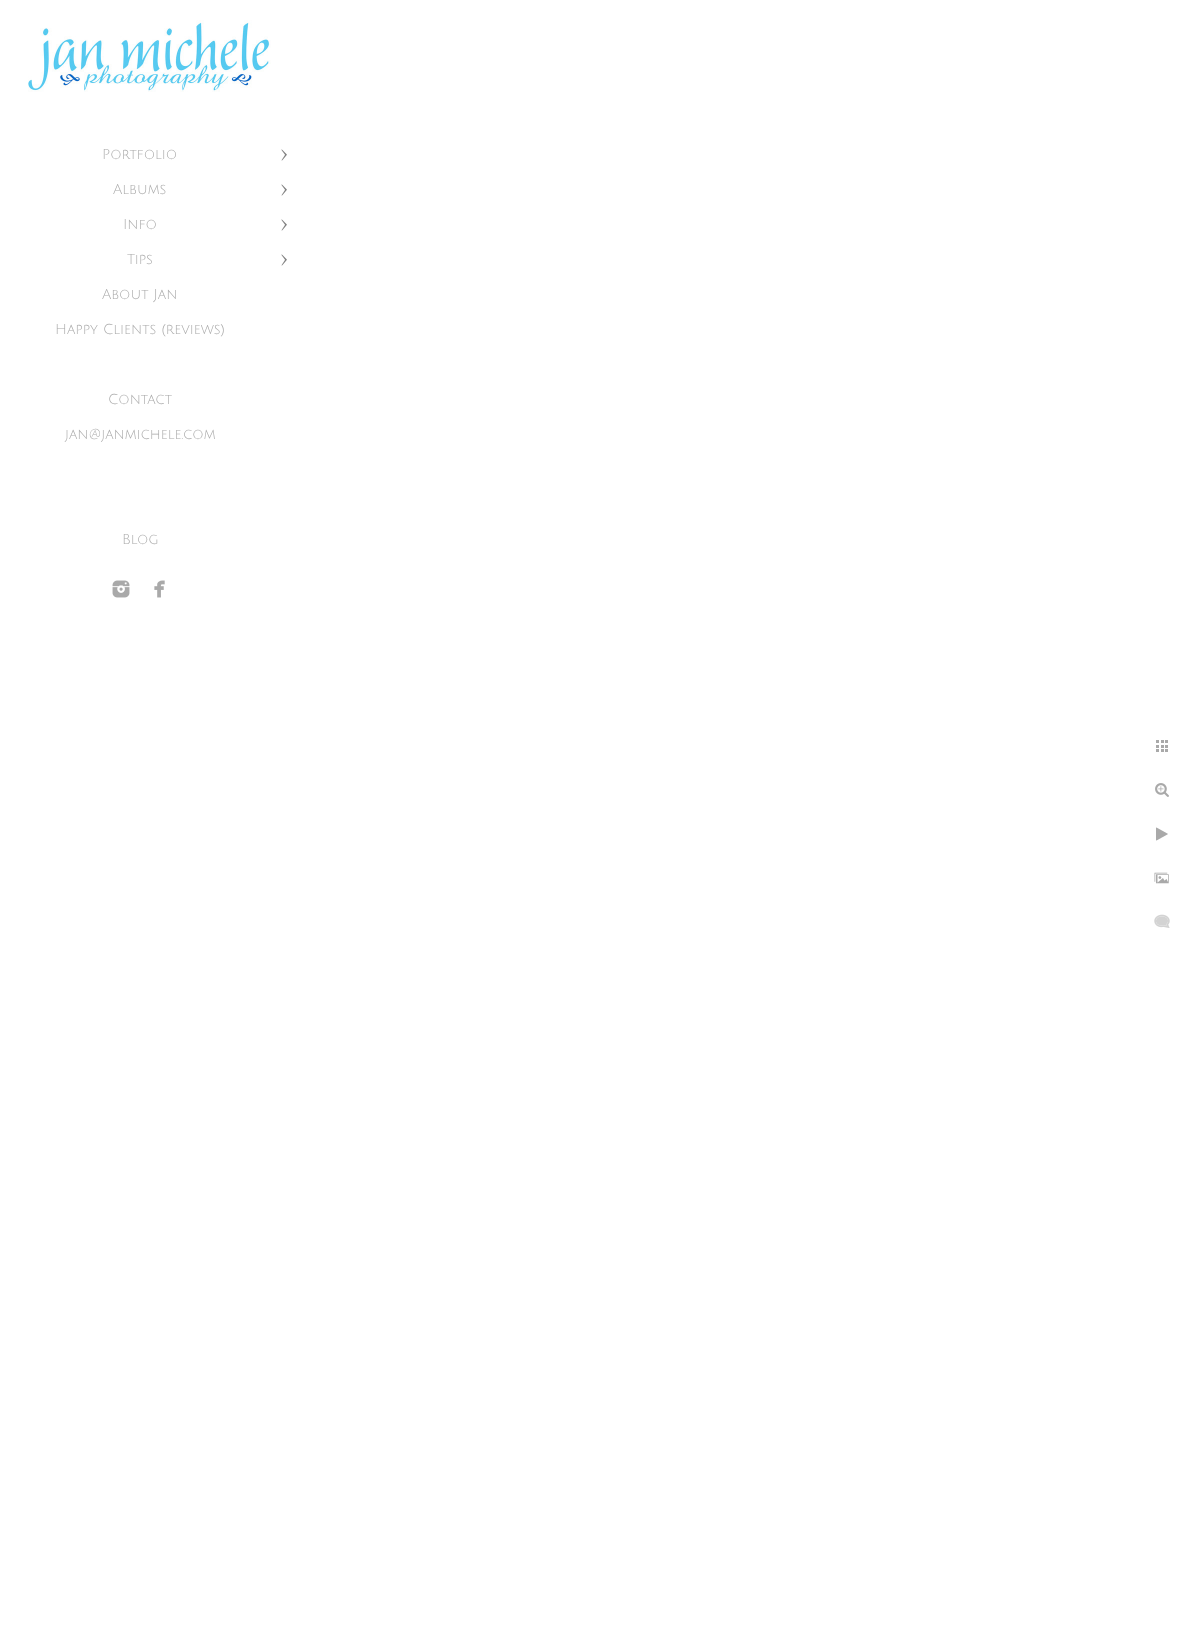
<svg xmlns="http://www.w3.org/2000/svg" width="1189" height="1648">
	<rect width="100%" height="100%" fill="#FFFFFF" />
	<image x="28" y="20" width="243" height="72" href="assets/img1.png" />
	<text x="102" y="159" font-family="Julius Sans One" font-size="14" fill="#A9A9A9">Portfolio</text>
	<image x="281" y="149" width="6" height="12" href="assets/img2.png" />
	<text x="113" y="194" font-family="Julius Sans One" font-size="14" fill="#A9A9A9">Albums</text>
	<image x="281" y="184" width="6" height="12" href="assets/img2.png" />
	<text x="123" y="229" font-family="Julius Sans One" font-size="14" fill="#A9A9A9">Info</text>
	<image x="281" y="219" width="6" height="12" href="assets/img2.png" />
	<text x="127" y="264" font-family="Julius Sans One" font-size="14" fill="#A9A9A9">Tips</text>
	<image x="281" y="254" width="6" height="12" href="assets/img2.png" />
	<g font-family="Julius Sans One" font-size="14" fill="#A9A9A9">
		<text x="102" y="299">About Jan</text>
		<text x="55" y="334">Happy Clients (reviews)</text>
		<text x="108" y="404">Contact</text>
		<text x="65" y="439">jan@janmichele.com</text>
		<text x="122" y="544">Blog</text>
	</g>
	<image x="112" y="580" width="18" height="18" href="assets/img3.png" />
	<image x="154" y="580" width="11" height="18" href="assets/img4.png" />
	<image x="1156" y="740" width="12" height="12" href="assets/img5.png" />
	<image x="1155" y="783" width="14" height="14" href="assets/img6.png" />
	<image x="1156" y="827" width="12" height="14" href="assets/img7.png" />
	<image x="1154" y="872" width="15" height="12" href="assets/img8.png" />
	<image x="1154" y="914" width="16" height="14" href="assets/img9.png" />
</svg>
